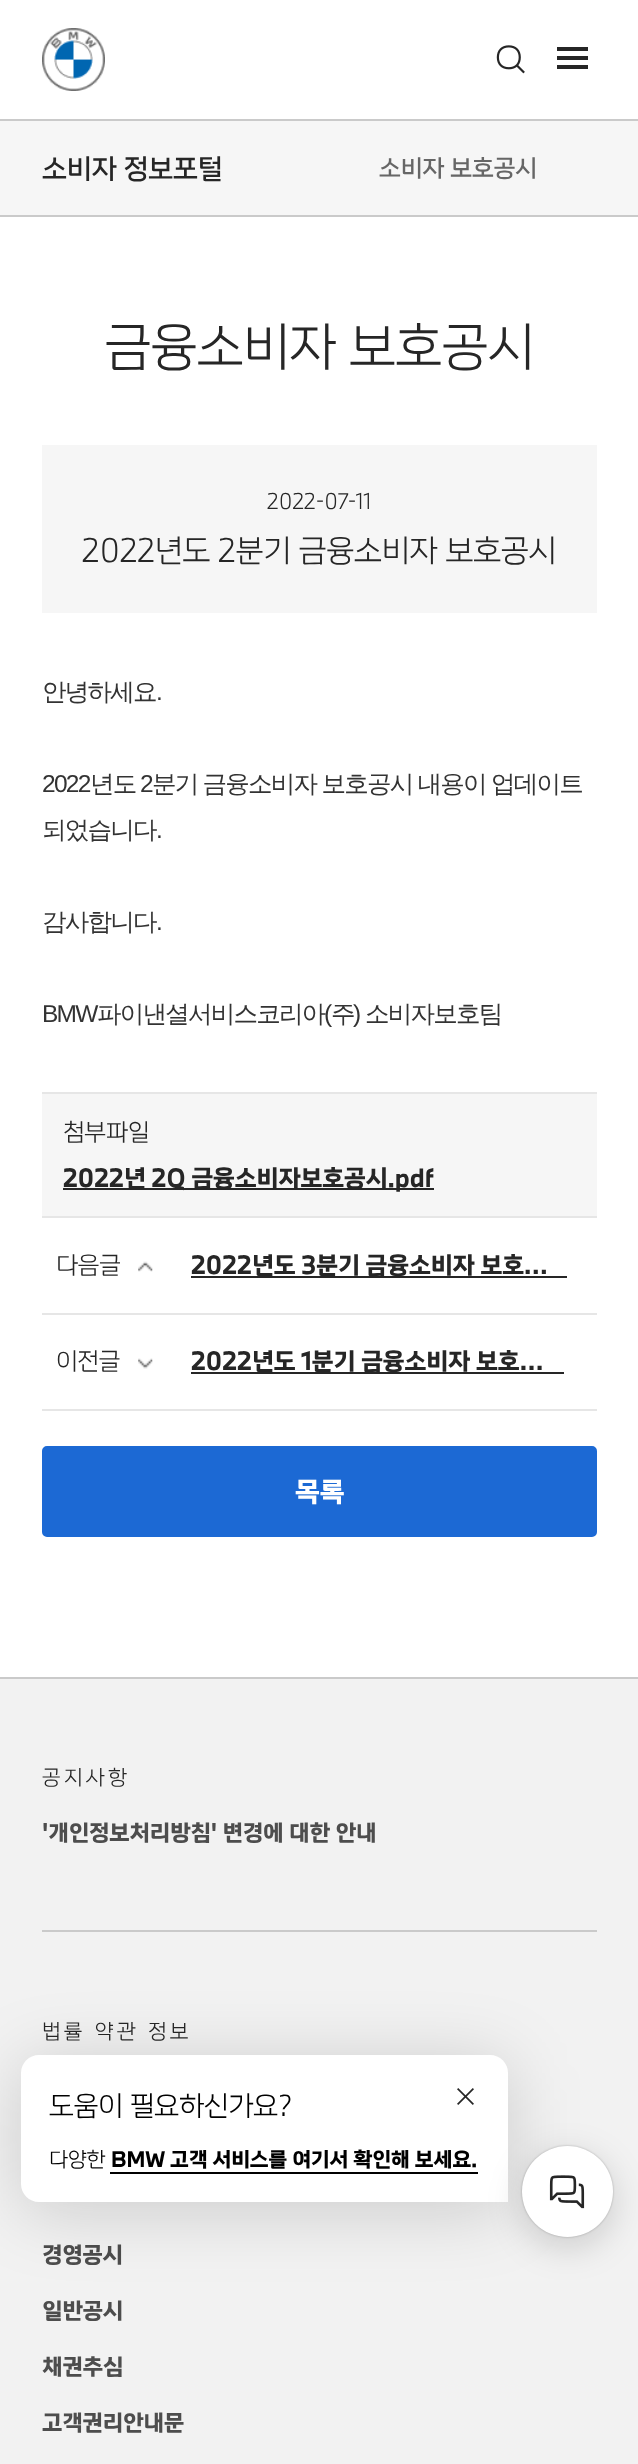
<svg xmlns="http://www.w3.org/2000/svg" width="638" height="2464">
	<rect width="100%" height="100%" fill="#FFFFFF" />
	<image x="42" y="28" width="63" height="63" href="assets/img1.png" />
	<rect x="557" y="47" width="31" height="4" fill="#262626" />
	<rect x="557" y="56" width="31" height="4" fill="#262626" />
	<rect x="557" y="65" width="31" height="4" fill="#262626" />
	<image x="496" y="45" width="29" height="29" href="assets/img2.png" />
	<rect x="0" y="121" width="638" height="94" fill="#F6F6F6" />
	<rect x="0" y="119" width="638" height="2" fill="#CACACA" />
	<rect x="0" y="215" width="638" height="2" fill="#CACACA" />
	<text x="42" y="179" font-family="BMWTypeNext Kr" font-size="28" fill="#262626">소비자 정보포털</text>
	<text x="379" y="177" font-family="BMWTypeNext Kr" font-size="24.5" fill="#666666">소비자 보호공시</text>
	<text x="105" y="366" font-family="BMWTypeNext Kr" font-size="52.5" font-weight="300" fill="#262626">금융소비자 보호공시</text>
	<rect x="42" y="445" width="555" height="168" fill="#F6F6F6" />
	<text x="267" y="509" font-family="BMWTypeNext Kr" font-size="21" font-weight="300" fill="#262626">2022-07-11</text>
	<text x="82" y="562" font-family="BMWTypeNext Kr" font-size="31.5" font-weight="300" fill="#262626">2022년도 2분기 금융소비자 보호공시</text>
	<text x="42" y="700" font-family="WenQuanYi Zen Hei" font-size="24.5" font-weight="500" letter-spacing="-1.75" fill="#333333">안녕하세요</text>
	<g font-family="Liberation Sans" font-size="24.5" letter-spacing="-1.75" fill="#333333">
		<text x="156" y="700">.</text>
		<text x="42" y="792">2022</text>
	</g>
	<text x="90" y="792" font-family="WenQuanYi Zen Hei" font-size="24.5" font-weight="500" letter-spacing="-1.75" fill="#333333">년도</text>
	<text x="140" y="792" font-family="Liberation Sans" font-size="24.5" letter-spacing="-1.75" fill="#333333">2</text>
	<g font-family="WenQuanYi Zen Hei" font-size="24.5" font-weight="500" letter-spacing="-1.75" fill="#333333">
		<text x="152" y="792" word-spacing="-0.5">분기 금융소비자 보호공시 내용이 업데이트</text>
		<text x="42" y="838">되었습니다</text>
	</g>
	<text x="156" y="838" font-family="Liberation Sans" font-size="24.5" letter-spacing="-1.75" fill="#333333">.</text>
	<text x="42" y="930" font-family="WenQuanYi Zen Hei" font-size="24.5" font-weight="500" letter-spacing="-1.75" fill="#333333">감사합니다</text>
	<g font-family="Liberation Sans" font-size="24.5" letter-spacing="-1.75" fill="#333333">
		<text x="156" y="930">.</text>
		<text x="42" y="1022">BMW</text>
	</g>
	<text x="97" y="1022" font-family="WenQuanYi Zen Hei" font-size="24.5" font-weight="500" letter-spacing="-1.75" fill="#333333">파이낸셜서비스코리아</text>
	<text x="324" y="1022" font-family="Liberation Sans" font-size="24.5" letter-spacing="-1.75" fill="#333333">(</text>
	<text x="331" y="1022" font-family="WenQuanYi Zen Hei" font-size="24.5" font-weight="500" letter-spacing="-1.75" fill="#333333">주</text>
	<text x="353" y="1022" font-family="Liberation Sans" font-size="24.5" letter-spacing="-1.75" fill="#333333">)</text>
	<text x="365" y="1022" font-family="WenQuanYi Zen Hei" font-size="24.5" font-weight="500" letter-spacing="-1.75" fill="#333333">소비자보호팀</text>
	<rect x="42" y="1094" width="555" height="122" fill="#F6F6F6" />
	<rect x="42" y="1092" width="555" height="2" fill="#E6E6E6" />
	<text x="63" y="1141" font-family="BMWTypeNext Kr" font-size="24.5" font-weight="300" fill="#262626">첨부파일</text>
	<rect x="63" y="1188" width="371" height="2" fill="#262626" />
	<text x="63" y="1187" font-family="BMWTypeNext Kr" font-size="24.5" font-weight="700" fill="#262626">2022년 2Q 금융소비자보호공시.pdf</text>
	<rect x="42" y="1216" width="555" height="2" fill="#E6E6E6" />
	<rect x="42" y="1313" width="555" height="2" fill="#E6E6E6" />
	<text x="56" y="1274" font-family="BMWTypeNext Kr" font-size="24.5" font-weight="300" fill="#262626">다음글</text>
	<image x="138" y="1261" width="15" height="11" href="assets/img3.png" />
	<rect x="191" y="1276" width="376" height="2" fill="#262626" />
	<text x="191" y="1274" font-family="BMWTypeNext Kr" font-size="24.5" font-weight="700" fill="#262626">2022년도 3분기 금융소비자 보호…</text>
	<rect x="42" y="1409" width="555" height="2" fill="#E6E6E6" />
	<text x="56" y="1370" font-family="BMWTypeNext Kr" font-size="24.5" font-weight="300" fill="#262626">이전글</text>
	<image x="138" y="1358" width="15" height="11" href="assets/img4.png" />
	<rect x="191" y="1372" width="373" height="2" fill="#262626" />
	<text x="191" y="1370" font-family="BMWTypeNext Kr" font-size="24.5" font-weight="700" fill="#262626">2022년도 1분기 금융소비자 보호…</text>
	<rect x="43" y="1447" width="553" height="89" rx="4" fill="#1C69D4" stroke="#1C69D4" stroke-width="2" />
	<text x="295" y="1502" font-family="BMWTypeNext Kr" font-size="28" font-weight="700" fill="#FFFFFF">목록</text>
	<rect x="0" y="1679" width="638" height="785" fill="#F2F2F2" />
	<rect x="0" y="1677" width="638" height="2" fill="#CACACA" />
	<rect x="42" y="1930" width="555" height="2" fill="#CACACA" />
	<text x="42" y="1785" font-family="BMWTypeNext Kr" font-size="21" font-weight="300" letter-spacing="3.5" fill="#262626">공지사항</text>
	<text x="42" y="1841" font-family="BMWTypeNext Kr" font-size="22.75" font-weight="700" fill="#4D4D4D">'개인정보처리방침' 변경에 대한 안내</text>
	<text x="42" y="2039" font-family="BMWTypeNext Kr" font-size="21" font-weight="300" letter-spacing="3.5" fill="#262626">법률 약관 정보</text>
	<g font-family="BMWTypeNext Kr" font-size="22.75" font-weight="700" fill="#4D4D4D">
		<text x="42" y="2263">경영공시</text>
		<text x="42" y="2319">일반공시</text>
		<text x="42" y="2375">채권추심</text>
		<text x="42" y="2431">고객권리안내문</text>
	</g>
	<rect x="21" y="2063" width="487" height="147" rx="18" fill="#000000" fill-opacity="0.16" filter="blur(35px)" />
	<path d="M39 2055H490C500 2055 508 2063 508 2073V2202H39C29 2202 21 2194 21 2184V2073C21 2063 29 2055 39 2055Z" fill="#FFFFFF" />
	<text x="49" y="2116" font-family="BMWTypeNext Kr" font-size="28" font-weight="300" fill="#000000">도움이 필요하신가요?</text>
	<image x="457" y="2088" width="17" height="17" href="assets/img5.png" />
	<text x="49" y="2167" font-family="BMWTypeNext Kr" font-size="21" font-weight="300" fill="#000000">다양한</text>
	<text x="111" y="2167" font-family="BMWTypeNext Kr" font-size="21" font-weight="700" fill="#000000">BMW 고객 서비스를 여기서 확인해 보세요.</text>
	<rect x="110" y="2172" width="368" height="2" fill="#000000" />
	<rect x="522" y="2146" width="91" height="91" rx="45.5" fill="#000000" fill-opacity="0.24" filter="blur(1px)" />
	<rect x="522" y="2156" width="91" height="91" rx="45.5" fill="#000000" fill-opacity="0.16" filter="blur(17.5px)" />
	<circle cx="567.5" cy="2191.5" r="45.5" fill="#FFFFFF" />
	<image x="549" y="2175" width="36" height="34" href="assets/img6.png" />
</svg>
